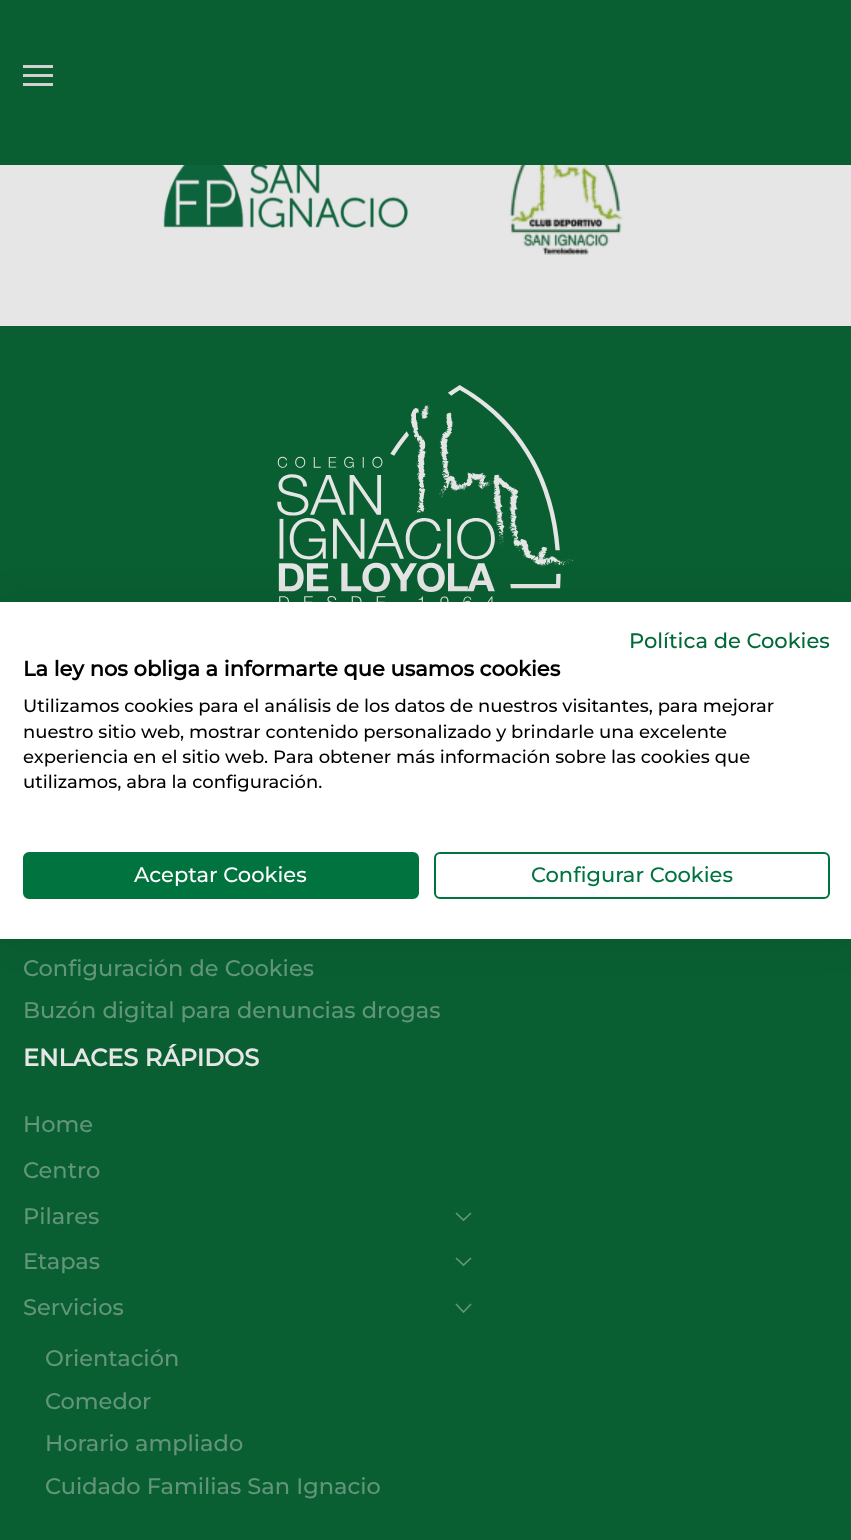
<svg xmlns="http://www.w3.org/2000/svg" width="851" height="1540">
	<rect width="100%" height="100%" fill="#E6E6E6" />
	<rect x="0" y="326" width="851" height="1214" fill="#0A5F32" />
	<image x="277" y="385" width="299" height="217" href="assets/img3.png" />
	<rect x="0" y="602" width="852" height="337" fill="#000000" fill-opacity="0.1" filter="blur(18px)" />
	<rect x="0" y="602" width="851" height="337" fill="#FFFFFF" />
	<text x="629" y="648" font-family="Montserrat" font-size="21" font-weight="100" fill="#006A36">Política de Cookies</text>
	<text x="23" y="676" font-family="Montserrat" font-size="21" font-weight="700" fill="#000000">La ley nos obliga a informarte que usamos cookies</text>
	<g font-family="Montserrat" font-size="18" font-weight="100" fill="#000000">
		<text x="23" y="712">Utilizamos cookies para el análisis de los datos de nuestros visitantes, para mejorar</text>
		<text x="23" y="738">nuestro sitio web, mostrar contenido personalizado y brindarle una excelente</text>
		<text x="23" y="763">experiencia en el sitio web. Para obtener más información sobre las cookies que</text>
		<text x="23" y="788">utilizamos, abra la configuración.</text>
	</g>
	<rect x="24" y="853" width="394" height="45" rx="5" fill="#00733F" stroke="#00733F" stroke-width="2" />
	<text x="134" y="882" font-family="Montserrat" font-size="21" font-weight="100" fill="#FFFFFF">Aceptar Cookies</text>
	<rect x="435" y="853" width="394" height="45" rx="5" fill="none" stroke="#00733F" stroke-width="2" />
	<text x="531" y="882" font-family="Montserrat" font-size="21" font-weight="100" fill="#00733F">Configurar Cookies</text>
	<rect x="0" y="0" width="851" height="165" fill="#0A5F32" />
	<rect x="23" y="65" width="30" height="3" fill="#D1D1D1" />
	<rect x="23" y="74" width="30" height="3" fill="#D1D1D1" />
	<rect x="23" y="83" width="30" height="3" fill="#D1D1D1" />
	<image x="163" y="165" width="246" height="64" href="assets/img1.png" />
	<image x="509" y="165" width="114" height="90" href="assets/img2.png" />
	<g font-family="Montserrat" font-size="22.5" font-weight="100" fill="#62957A">
		<text x="23" y="976">Configuración de Cookies</text>
		<text x="23" y="1018">Buzón digital para denuncias drogas</text>
	</g>
	<text x="23" y="1066" font-family="Montserrat" font-size="24" font-weight="700" fill="#E6E6E6">ENLACES RÁPIDOS</text>
	<g font-family="Montserrat" font-size="22.5" font-weight="100" fill="#62957A">
		<text x="23" y="1132">Home</text>
		<text x="23" y="1178">Centro</text>
		<text x="23" y="1224">Pilares</text>
	</g>
	<path d="M456 1213L463.5 1220L471 1213M456 1258L463.5 1265L471 1258" fill="none" stroke="#62957A" stroke-width="1.7" />
	<g font-family="Montserrat" font-size="22.5" font-weight="100" fill="#62957A">
		<text x="23" y="1269">Etapas</text>
		<text x="23" y="1315">Servicios</text>
	</g>
	<path d="M456 1304L463.5 1312L471 1304" fill="none" stroke="#62957A" stroke-width="1.7" />
	<g font-family="Montserrat" font-size="22.5" font-weight="100" fill="#62957A">
		<text x="45" y="1366">Orientación</text>
		<text x="45" y="1409">Comedor</text>
		<text x="45" y="1451">Horario ampliado</text>
		<text x="45" y="1494">Cuidado Familias San Ignacio</text>
	</g>
</svg>
